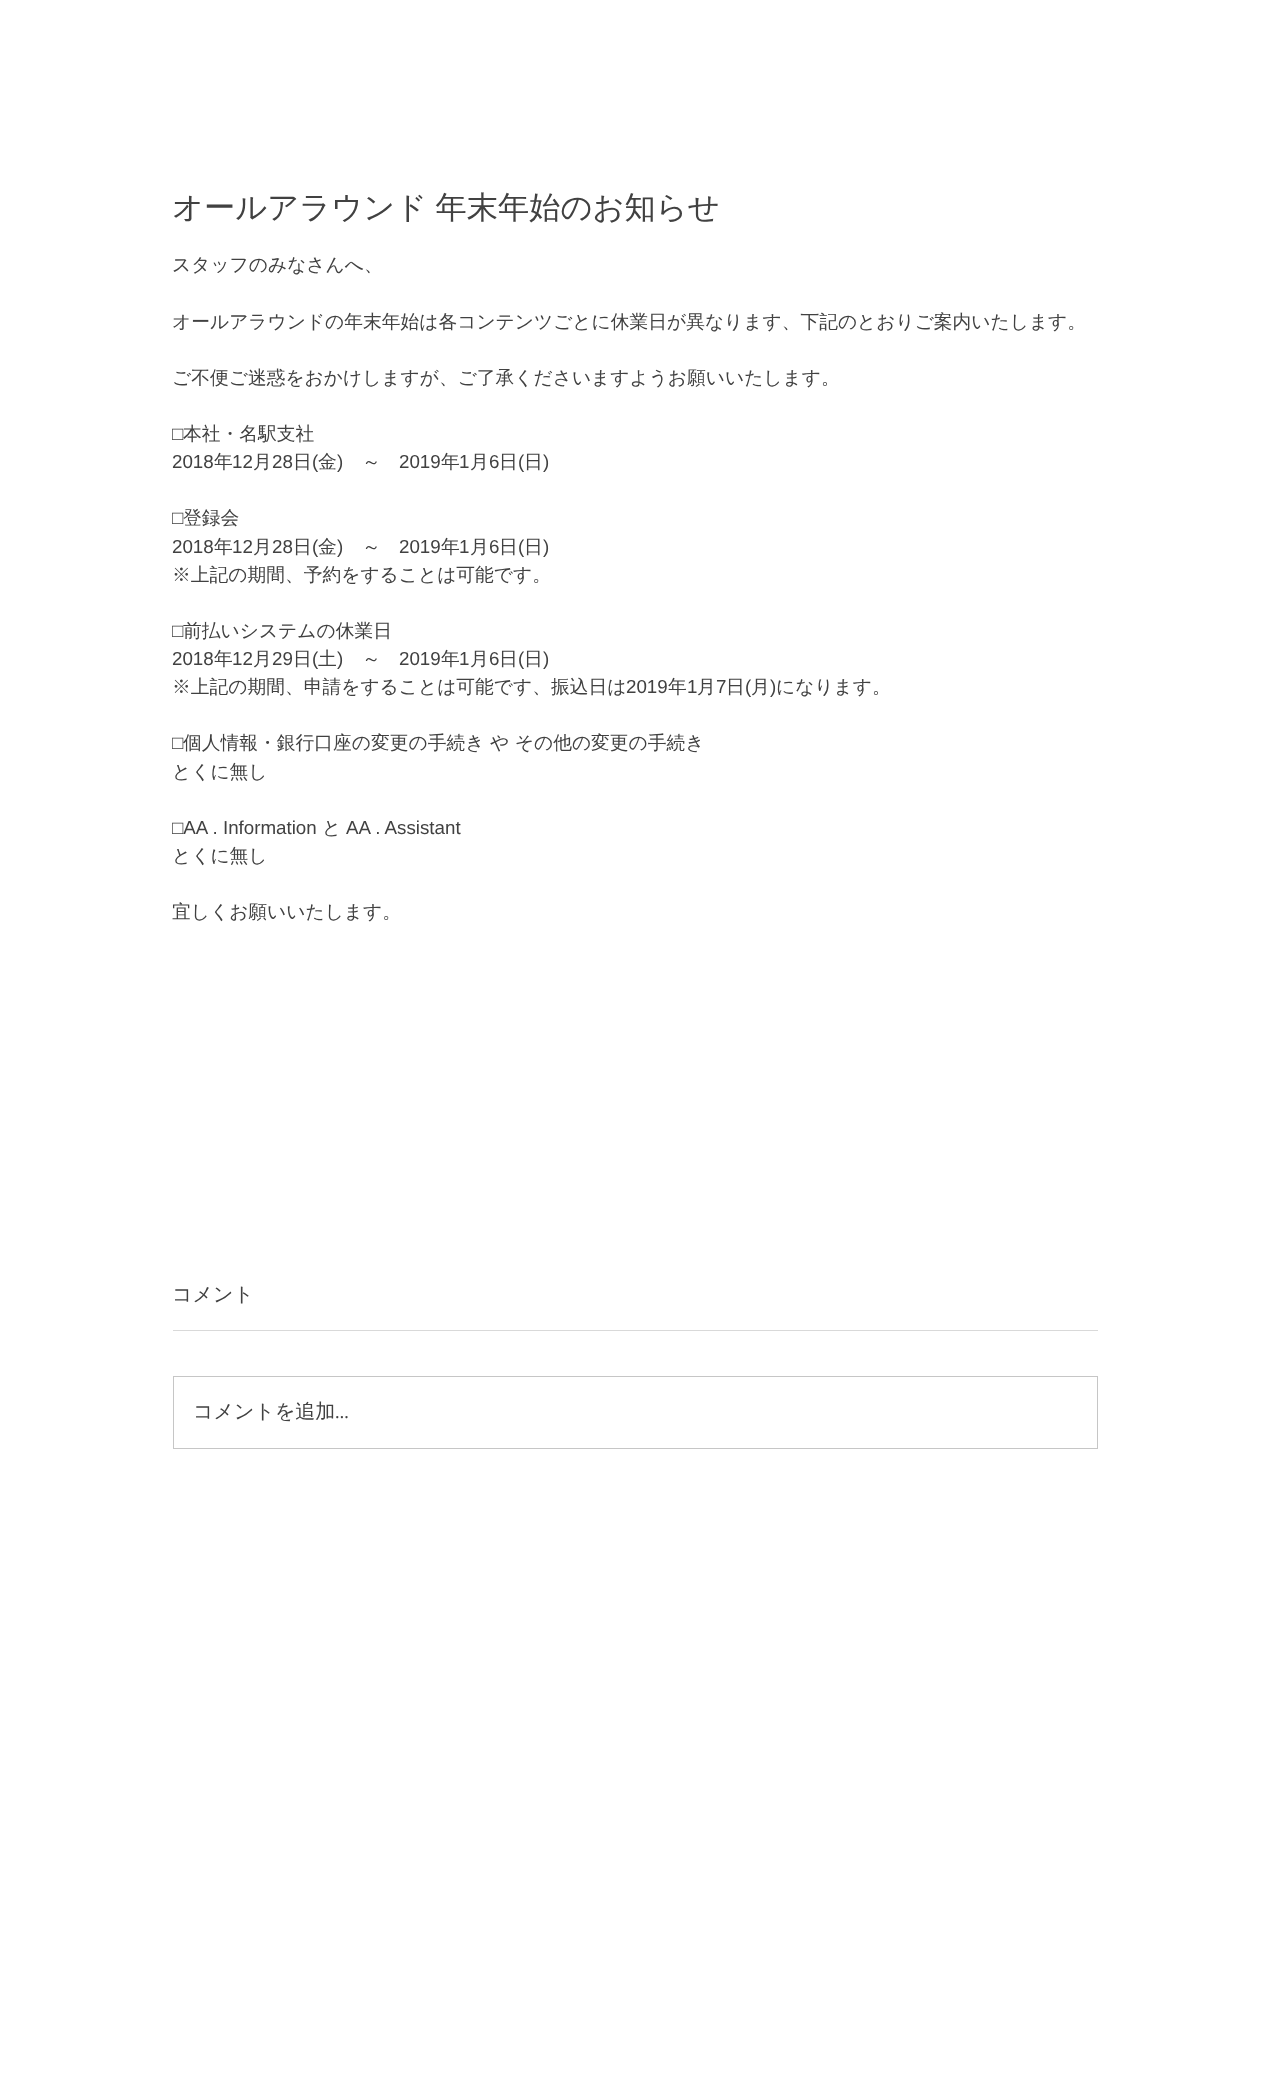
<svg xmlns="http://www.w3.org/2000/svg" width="1268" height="2079">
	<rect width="100%" height="100%" fill="#FFFFFF" />
	<text x="172" y="218" word-spacing="-1" font-family="WenQuanYi Zen Hei" font-size="31.25" font-weight="500" fill="#414141">オールアラウンド 年末年始のお知らせ</text>
	<g font-family="WenQuanYi Zen Hei" font-size="18.75" font-weight="500" fill="#414141">
		<text x="172" y="271">スタッフのみなさんへ、</text>
		<text x="172" y="328">オールアラウンドの年末年始は各コンテンツごとに休業日が異なります、下記のとおりご案内いたします。</text>
		<text x="172" y="384">ご不便ご迷惑をおかけしますが、ご了承くださいますようお願いいたします。</text>
	</g>
	<text x="172" y="440" font-family="Liberation Sans" font-size="18.75" fill="#414141">□</text>
	<text x="183" y="440" font-family="WenQuanYi Zen Hei" font-size="18.75" font-weight="500" fill="#414141">本社・名駅支社</text>
	<text x="172" y="468" font-family="Liberation Sans" font-size="18.75" fill="#414141">2018</text>
	<text x="214" y="468" font-family="WenQuanYi Zen Hei" font-size="18.75" font-weight="500" fill="#414141">年</text>
	<text x="232" y="468" font-family="Liberation Sans" font-size="18.75" fill="#414141">12</text>
	<text x="253" y="468" font-family="WenQuanYi Zen Hei" font-size="18.75" font-weight="500" fill="#414141">月</text>
	<text x="272" y="468" font-family="Liberation Sans" font-size="18.75" fill="#414141">28</text>
	<text x="293" y="468" font-family="WenQuanYi Zen Hei" font-size="18.75" font-weight="500" fill="#414141">日</text>
	<text x="312" y="468" font-family="Liberation Sans" font-size="18.75" fill="#414141">(</text>
	<text x="318" y="468" font-family="WenQuanYi Zen Hei" font-size="18.75" font-weight="500" fill="#414141">金</text>
	<text x="337" y="468" font-family="Liberation Sans" font-size="18.75" fill="#414141">)</text>
	<text x="362" y="468" font-family="WenQuanYi Zen Hei" font-size="18.75" font-weight="500" fill="#414141">～</text>
	<text x="399" y="468" font-family="Liberation Sans" font-size="18.75" fill="#414141">2019</text>
	<text x="441" y="468" font-family="WenQuanYi Zen Hei" font-size="18.75" font-weight="500" fill="#414141">年</text>
	<text x="459" y="468" font-family="Liberation Sans" font-size="18.75" fill="#414141">1</text>
	<text x="470" y="468" font-family="WenQuanYi Zen Hei" font-size="18.75" font-weight="500" fill="#414141">月</text>
	<text x="489" y="468" font-family="Liberation Sans" font-size="18.75" fill="#414141">6</text>
	<text x="499" y="468" font-family="WenQuanYi Zen Hei" font-size="18.75" font-weight="500" fill="#414141">日</text>
	<text x="518" y="468" font-family="Liberation Sans" font-size="18.75" fill="#414141">(</text>
	<text x="524" y="468" font-family="WenQuanYi Zen Hei" font-size="18.75" font-weight="500" fill="#414141">日</text>
	<g font-family="Liberation Sans" font-size="18.75" fill="#414141">
		<text x="543" y="468">)</text>
		<text x="172" y="524">□</text>
	</g>
	<text x="183" y="524" font-family="WenQuanYi Zen Hei" font-size="18.75" font-weight="500" fill="#414141">登録会</text>
	<text x="172" y="553" font-family="Liberation Sans" font-size="18.75" fill="#414141">2018</text>
	<text x="214" y="553" font-family="WenQuanYi Zen Hei" font-size="18.75" font-weight="500" fill="#414141">年</text>
	<text x="232" y="553" font-family="Liberation Sans" font-size="18.75" fill="#414141">12</text>
	<text x="253" y="553" font-family="WenQuanYi Zen Hei" font-size="18.75" font-weight="500" fill="#414141">月</text>
	<text x="272" y="553" font-family="Liberation Sans" font-size="18.75" fill="#414141">28</text>
	<text x="293" y="553" font-family="WenQuanYi Zen Hei" font-size="18.75" font-weight="500" fill="#414141">日</text>
	<text x="312" y="553" font-family="Liberation Sans" font-size="18.75" fill="#414141">(</text>
	<text x="318" y="553" font-family="WenQuanYi Zen Hei" font-size="18.75" font-weight="500" fill="#414141">金</text>
	<text x="337" y="553" font-family="Liberation Sans" font-size="18.75" fill="#414141">)</text>
	<text x="362" y="553" font-family="WenQuanYi Zen Hei" font-size="18.75" font-weight="500" fill="#414141">～</text>
	<text x="399" y="553" font-family="Liberation Sans" font-size="18.75" fill="#414141">2019</text>
	<text x="441" y="553" font-family="WenQuanYi Zen Hei" font-size="18.75" font-weight="500" fill="#414141">年</text>
	<text x="459" y="553" font-family="Liberation Sans" font-size="18.75" fill="#414141">1</text>
	<text x="470" y="553" font-family="WenQuanYi Zen Hei" font-size="18.75" font-weight="500" fill="#414141">月</text>
	<text x="489" y="553" font-family="Liberation Sans" font-size="18.75" fill="#414141">6</text>
	<text x="499" y="553" font-family="WenQuanYi Zen Hei" font-size="18.75" font-weight="500" fill="#414141">日</text>
	<text x="518" y="553" font-family="Liberation Sans" font-size="18.75" fill="#414141">(</text>
	<text x="524" y="553" font-family="WenQuanYi Zen Hei" font-size="18.75" font-weight="500" fill="#414141">日</text>
	<text x="543" y="553" font-family="Liberation Sans" font-size="18.75" fill="#414141">)</text>
	<text x="172" y="581" font-family="WenQuanYi Zen Hei" font-size="18.75" font-weight="500" fill="#414141">※上記の期間、予約をすることは可能です。</text>
	<text x="172" y="637" font-family="Liberation Sans" font-size="18.75" fill="#414141">□</text>
	<text x="183" y="637" font-family="WenQuanYi Zen Hei" font-size="18.75" font-weight="500" fill="#414141">前払いシステムの休業日</text>
	<text x="172" y="665" font-family="Liberation Sans" font-size="18.75" fill="#414141">2018</text>
	<text x="214" y="665" font-family="WenQuanYi Zen Hei" font-size="18.75" font-weight="500" fill="#414141">年</text>
	<text x="232" y="665" font-family="Liberation Sans" font-size="18.75" fill="#414141">12</text>
	<text x="253" y="665" font-family="WenQuanYi Zen Hei" font-size="18.75" font-weight="500" fill="#414141">月</text>
	<text x="272" y="665" font-family="Liberation Sans" font-size="18.75" fill="#414141">29</text>
	<text x="293" y="665" font-family="WenQuanYi Zen Hei" font-size="18.75" font-weight="500" fill="#414141">日</text>
	<text x="312" y="665" font-family="Liberation Sans" font-size="18.75" fill="#414141">(</text>
	<text x="318" y="665" font-family="WenQuanYi Zen Hei" font-size="18.75" font-weight="500" fill="#414141">土</text>
	<text x="337" y="665" font-family="Liberation Sans" font-size="18.75" fill="#414141">)</text>
	<text x="362" y="665" font-family="WenQuanYi Zen Hei" font-size="18.75" font-weight="500" fill="#414141">～</text>
	<text x="399" y="665" font-family="Liberation Sans" font-size="18.75" fill="#414141">2019</text>
	<text x="441" y="665" font-family="WenQuanYi Zen Hei" font-size="18.75" font-weight="500" fill="#414141">年</text>
	<text x="459" y="665" font-family="Liberation Sans" font-size="18.75" fill="#414141">1</text>
	<text x="470" y="665" font-family="WenQuanYi Zen Hei" font-size="18.75" font-weight="500" fill="#414141">月</text>
	<text x="489" y="665" font-family="Liberation Sans" font-size="18.75" fill="#414141">6</text>
	<text x="499" y="665" font-family="WenQuanYi Zen Hei" font-size="18.75" font-weight="500" fill="#414141">日</text>
	<text x="518" y="665" font-family="Liberation Sans" font-size="18.75" fill="#414141">(</text>
	<text x="524" y="665" font-family="WenQuanYi Zen Hei" font-size="18.75" font-weight="500" fill="#414141">日</text>
	<text x="543" y="665" font-family="Liberation Sans" font-size="18.75" fill="#414141">)</text>
	<text x="172" y="693" font-family="WenQuanYi Zen Hei" font-size="18.75" font-weight="500" fill="#414141">※上記の期間、申請をすることは可能です、振込日は</text>
	<text x="626" y="693" font-family="Liberation Sans" font-size="18.75" fill="#414141">2019</text>
	<text x="668" y="693" font-family="WenQuanYi Zen Hei" font-size="18.75" font-weight="500" fill="#414141">年</text>
	<text x="687" y="693" font-family="Liberation Sans" font-size="18.75" fill="#414141">1</text>
	<text x="697" y="693" font-family="WenQuanYi Zen Hei" font-size="18.75" font-weight="500" fill="#414141">月</text>
	<text x="716" y="693" font-family="Liberation Sans" font-size="18.75" fill="#414141">7</text>
	<text x="726" y="693" font-family="WenQuanYi Zen Hei" font-size="18.75" font-weight="500" fill="#414141">日</text>
	<text x="745" y="693" font-family="Liberation Sans" font-size="18.75" fill="#414141">(</text>
	<text x="751" y="693" font-family="WenQuanYi Zen Hei" font-size="18.75" font-weight="500" fill="#414141">月</text>
	<text x="770" y="693" font-family="Liberation Sans" font-size="18.75" fill="#414141">)</text>
	<text x="776" y="693" font-family="WenQuanYi Zen Hei" font-size="18.75" font-weight="500" fill="#414141">になります。</text>
	<text x="172" y="749" font-family="Liberation Sans" font-size="18.75" fill="#414141">□</text>
	<g font-family="WenQuanYi Zen Hei" font-size="18.75" font-weight="500" fill="#414141">
		<text x="183" y="749">個人情報・銀行口座の変更の手続き や その他の変更の手続き</text>
		<text x="172" y="778">とくに無し</text>
	</g>
	<text x="172" y="834" font-family="Liberation Sans" font-size="18.75" fill="#414141">□AA . Information</text>
	<text x="322" y="834" font-family="WenQuanYi Zen Hei" font-size="18.75" font-weight="500" fill="#414141">と</text>
	<text x="346" y="834" font-family="Liberation Sans" font-size="18.75" fill="#414141">AA . Assistant</text>
	<g font-family="WenQuanYi Zen Hei" font-size="18.75" font-weight="500" fill="#414141">
		<text x="172" y="862">とくに無し</text>
		<text x="172" y="918">宜しくお願いいたします。</text>
	</g>
	<text x="172" y="1301" font-family="WenQuanYi Zen Hei" font-size="20" font-weight="500" fill="#414141">コメント</text>
	<rect x="173" y="1330" width="925" height="1" fill="#D9D9D9" />
	<rect x="173.5" y="1376.5" width="924" height="72" fill="none" stroke="#C6C6C6" />
	<text x="193" y="1418" font-family="WenQuanYi Zen Hei" font-size="20" font-weight="500" fill="#414141">コメントを追加</text>
	<text x="335" y="1418" font-family="'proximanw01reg'" font-size="20" fill="#414141">…</text>
</svg>
